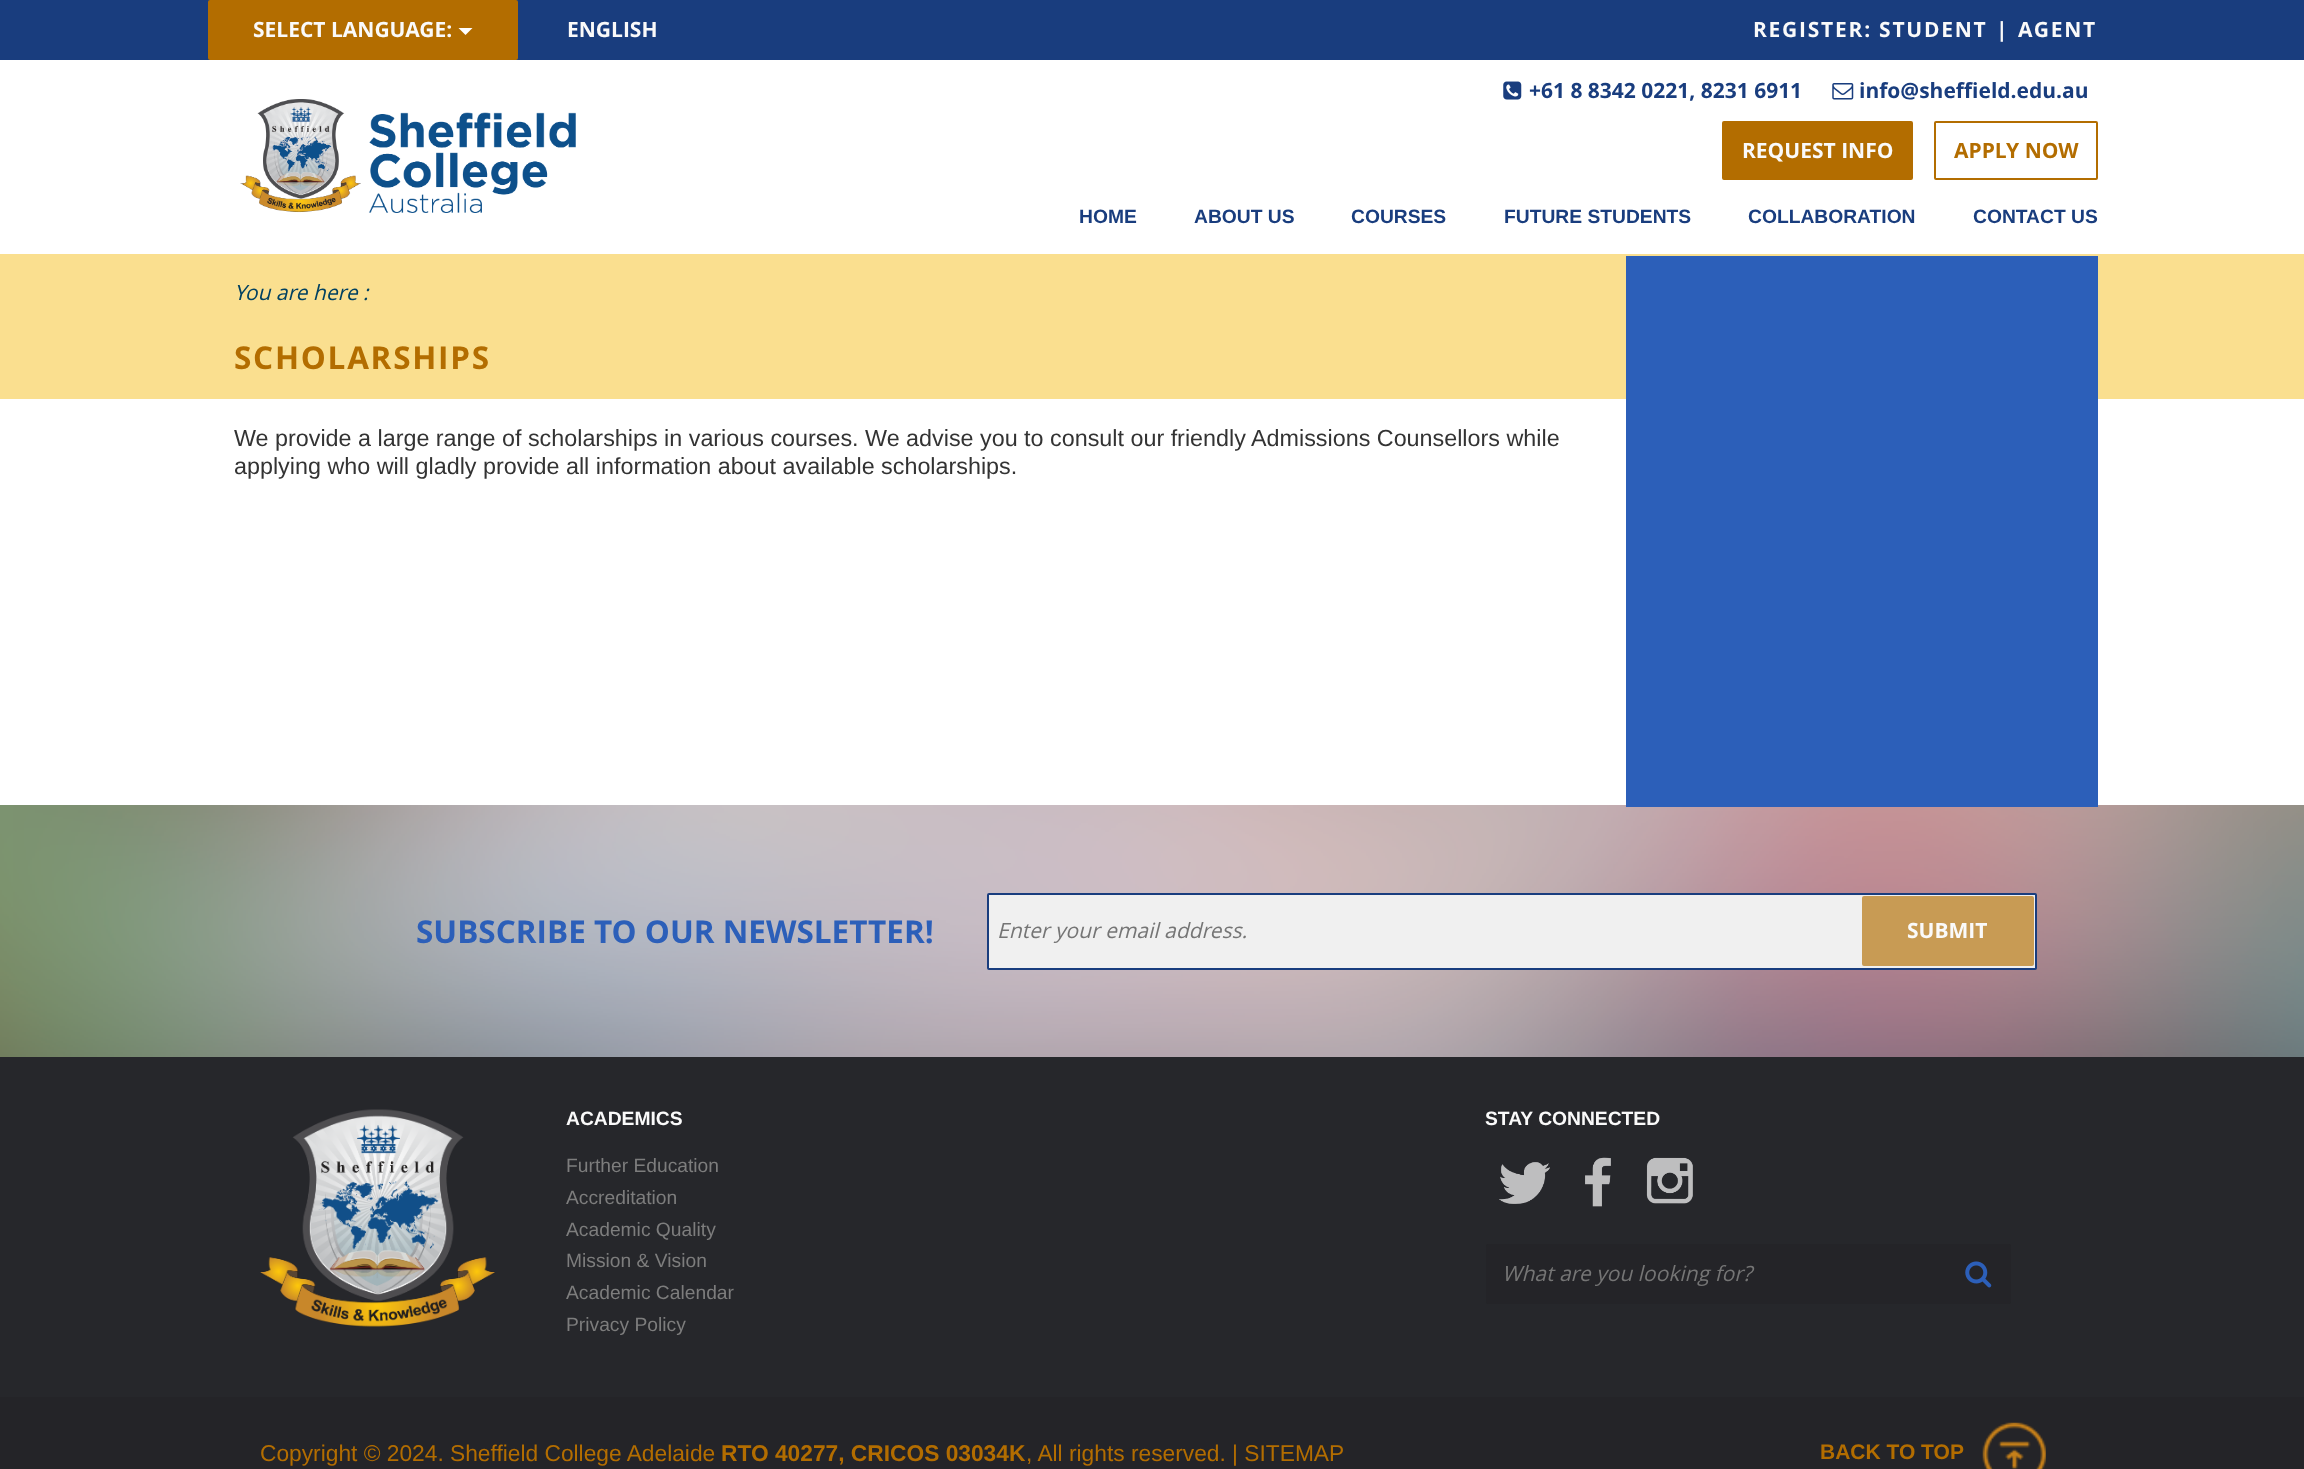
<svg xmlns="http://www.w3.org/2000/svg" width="2304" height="1469">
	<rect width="100%" height="100%" fill="#FFFFFF" />
	<rect x="0" y="0" width="2304" height="60" fill="#193D7E" />
	<rect x="209" y="1" width="308" height="58" rx="1" fill="#B36D00" stroke="#B36D00" stroke-width="2" />
	<text x="253" y="37" font-family="Open Sans" font-size="21" font-weight="700" fill="#FAFAFA">SELECT LANGUAGE:</text>
	<path d="M458.5 28H472.5L465.5 35Z" fill="#FFFFFF" />
	<text x="567" y="37" font-family="Open Sans" font-size="21" font-weight="700" fill="#FAFAFA">ENGLISH</text>
	<g font-family="Open Sans" font-size="21" font-weight="700" letter-spacing="1.75" fill="#FAFAFA">
		<text x="1753" y="37">REGISTER: STUDENT</text>
		<text x="1996" y="37">|</text>
		<text x="2018" y="37">AGENT</text>
	</g>
	<image x="240" y="99" width="336" height="114" href="assets/img1.png" />
	<image x="1503" y="81" width="19" height="19" href="assets/img2.png" />
	<text x="1529" y="98" font-family="Open Sans" font-size="21" font-weight="700" fill="#193D7E">+61 8 8342 0221, 8231 6911</text>
	<image x="1832" y="83" width="22" height="17" href="assets/img3.png" />
	<text x="1859" y="98" font-family="Open Sans" font-size="21" font-weight="700" fill="#193D7E">info@sheffield.edu.au</text>
	<rect x="1723" y="122" width="189" height="57" rx="1" fill="#B36D00" stroke="#B36D00" stroke-width="2" />
	<text x="1742" y="158" font-family="Open Sans" font-size="21" font-weight="700" fill="#FAFAFA">REQUEST INFO</text>
	<rect x="1935" y="122" width="162" height="57" rx="1" fill="none" stroke="#B36D00" stroke-width="2" />
	<text x="1954" y="158" font-family="Open Sans" font-size="21" font-weight="700" fill="#B36D00">APPLY NOW</text>
	<g font-family="Liberation Sans" font-size="19.25" font-weight="700" fill="#193D7E">
		<text x="1079" y="223">HOME</text>
		<text x="1194" y="223">ABOUT US</text>
		<text x="1351" y="223">COURSES</text>
		<text x="1504" y="223">FUTURE STUDENTS</text>
		<text x="1748" y="223">COLLABORATION</text>
		<text x="1973" y="223">CONTACT US</text>
	</g>
	<rect x="0" y="254" width="2304" height="145" fill="#FADF8F" />
	<text x="234" y="300" font-family="Open Sans" font-size="21" font-style="italic" fill="#004161">You are here :</text>
	<text x="234" y="369" font-family="Open Sans" font-size="31.5" font-weight="700" letter-spacing="1.75" fill="#B36D00">SCHOLARSHIPS</text>
	<g font-family="Liberation Sans" font-size="23.33" fill="#333333">
		<text x="234" y="446">We provide a large range of scholarships in various courses. We advise you to consult our friendly Admissions Counsellors while</text>
		<text x="234" y="474">applying who will gladly provide all information about available scholarships.</text>
	</g>
	<image x="0" y="805" width="2304" height="252" href="assets/img4.png" />
	<rect x="1626" y="256" width="472" height="551" fill="#2C5FB9" />
	<text x="416" y="943" font-family="Open Sans" font-size="31.5" font-weight="700" fill="#2C5FB9">SUBSCRIBE TO OUR NEWSLETTER!</text>
	<rect x="988" y="894" width="1048" height="75" rx="1" fill="#F0F0F0" stroke="#193D7E" stroke-width="2" />
	<text x="997" y="938" font-family="Open Sans" font-size="21" font-style="italic" fill="#757575">Enter your email address.</text>
	<rect x="1863" y="897" width="170" height="68" rx="1" fill="#C89B54" stroke="#C89B54" stroke-width="2" />
	<text x="1907" y="938" font-family="Open Sans" font-size="21" font-weight="700" fill="#FAFAFA">SUBMIT</text>
	<rect x="0" y="1057" width="2304" height="340" fill="#26272B" />
	<image x="260" y="1109" width="235" height="218" href="assets/img5.png" />
	<text x="566" y="1125" font-family="Liberation Sans" font-size="19.25" font-weight="700" fill="#FAFAFA">ACADEMICS</text>
	<g font-family="Liberation Sans" font-size="19.25" fill="#7D7D7D">
		<text x="566" y="1172">Further Education</text>
		<text x="566" y="1204">Accreditation</text>
		<text x="566" y="1236">Academic Quality</text>
		<text x="566" y="1267">Mission &amp; Vision</text>
		<text x="566" y="1299">Academic Calendar</text>
		<text x="566" y="1331">Privacy Policy</text>
	</g>
	<text x="1485" y="1125" font-family="Liberation Sans" font-size="19.25" font-weight="700" fill="#FAFAFA">STAY CONNECTED</text>
	<image x="1499" y="1162" width="51" height="42" href="assets/img6.png" />
	<image x="1585" y="1157" width="26" height="50" href="assets/img7.png" />
	<image x="1646" y="1157" width="47" height="47" href="assets/img8.png" />
	<rect x="1486" y="1244" width="525" height="60" rx="2" fill="#242428" />
	<text x="1502" y="1281" font-family="Open Sans" font-size="21" font-style="italic" fill="#757575">What are you looking for?</text>
	<image x="1965" y="1261" width="27" height="27" href="assets/img9.png" />
	<rect x="0" y="1397" width="2304" height="72" fill="#242428" />
	<text x="260" y="1461" font-family="Liberation Sans" font-size="22.75" fill="#B36D00">Copyright © 2024. Sheffield College Adelaide</text>
	<text x="721" y="1461" font-family="Liberation Sans" font-size="22.75" font-weight="700" fill="#B36D00">RTO 40277, CRICOS 03034K</text>
	<text x="1026" y="1461" font-family="Liberation Sans" font-size="22.75" fill="#B36D00">, All rights reserved. | SITEMAP</text>
	<text x="1820" y="1459" font-family="Liberation Sans" font-size="21" font-weight="700" fill="#B36D00">BACK TO TOP</text>
	<image x="1982" y="1422" width="64" height="47" href="assets/img10.png" />
</svg>
